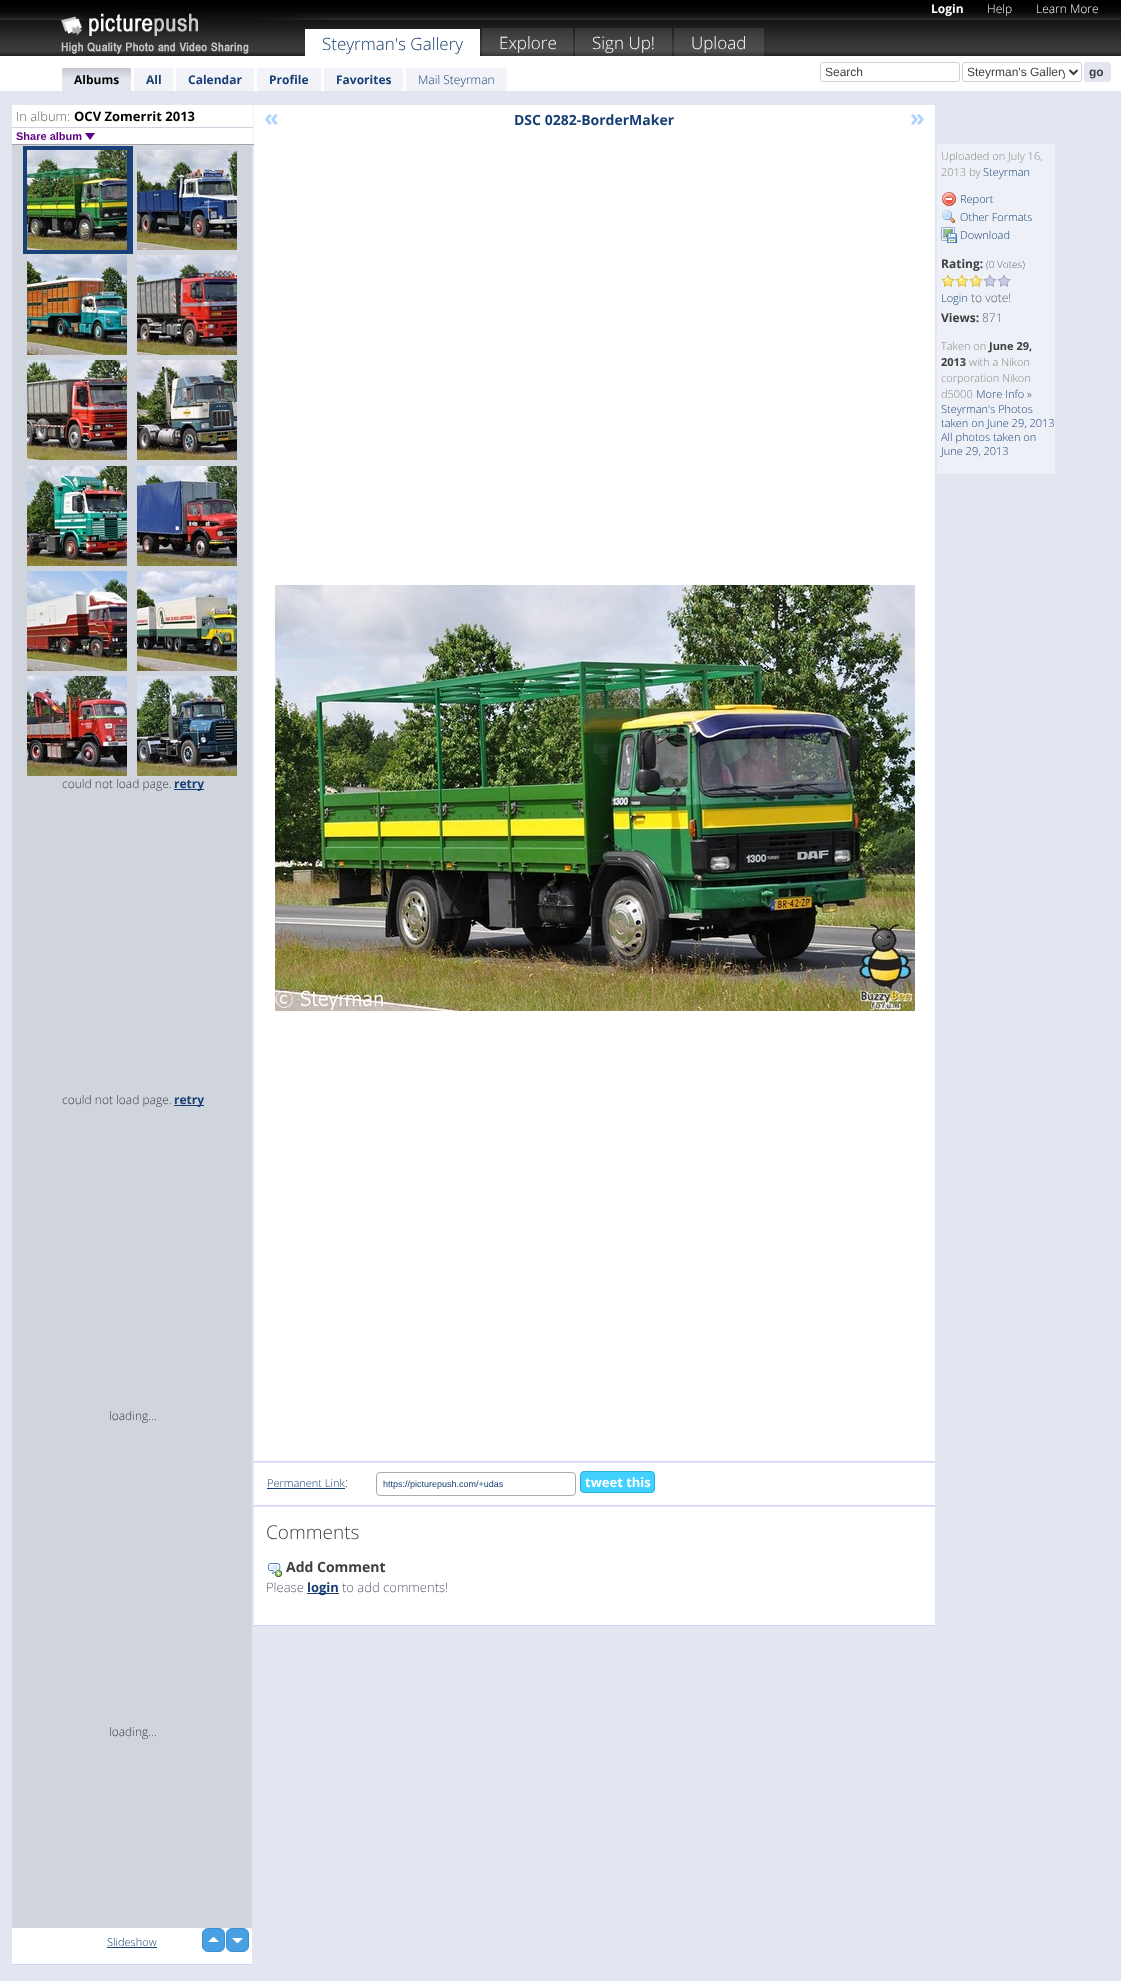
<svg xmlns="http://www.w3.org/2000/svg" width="1121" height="1981">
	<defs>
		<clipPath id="clip1"><rect x="967" y="64" width="98" height="16" /></clipPath>
	</defs>
	<rect width="100%" height="100%" fill="#E3E6F1" />
	<image x="0" y="0" width="1121" height="56" href="assets/img1.png" />
	<image x="61" y="8" width="264" height="48" href="assets/img2.png" />
	<rect x="305" y="29" width="175" height="27" fill="#FFFFFF" />
	<text x="322" y="50" font-family="Open Sans" font-size="17" font-weight="300" fill="#163F73">Steyrman's Gallery</text>
	<rect x="482" y="28" width="91" height="28" fill="#FFFFFF" fill-opacity="0.1" />
	<text x="499" y="49" font-family="Open Sans" font-size="17" font-weight="300" fill="#FFFFFF">Explore</text>
	<rect x="575" y="28" width="97" height="28" fill="#FFFFFF" fill-opacity="0.1" />
	<text x="592" y="49" font-family="Open Sans" font-size="17" font-weight="300" fill="#FFFFFF">Sign Up!</text>
	<rect x="674" y="28" width="90" height="28" fill="#FFFFFF" fill-opacity="0.1" />
	<text x="691" y="49" font-family="Open Sans" font-size="17" font-weight="300" fill="#FFFFFF">Upload</text>
	<text x="931" y="13" font-family="Open Sans" font-size="12" font-weight="700" fill="#FFFFFF">Login</text>
	<g font-family="Open Sans" font-size="12" font-weight="300" fill="#FFFFFF">
		<text x="987" y="13">Help</text>
		<text x="1036" y="13">Learn More</text>
	</g>
	<rect x="0" y="56" width="1121" height="35" fill="#FFFFFF" />
	<rect x="62" y="68" width="69" height="23" fill="#E3E6F1" />
	<image x="62" y="68" width="69" height="10" href="assets/img3.png" />
	<text x="74" y="84" font-family="Open Sans" font-size="12" font-weight="700" fill="#000000">Albums</text>
	<rect x="134" y="68" width="39" height="23" fill="#F1F3F9" />
	<text x="146" y="84" font-family="Open Sans" font-size="12" font-weight="700" fill="#163F73">All</text>
	<rect x="176" y="68" width="78" height="23" fill="#F1F3F9" />
	<text x="188" y="84" font-family="Open Sans" font-size="12" font-weight="700" fill="#163F73">Calendar</text>
	<rect x="257" y="68" width="64" height="23" fill="#F1F3F9" />
	<text x="269" y="84" font-family="Open Sans" font-size="12" font-weight="700" fill="#163F73">Profile</text>
	<rect x="324" y="68" width="79" height="23" fill="#F1F3F9" />
	<text x="336" y="84" font-family="Open Sans" font-size="12" font-weight="700" fill="#163F73">Favorites</text>
	<rect x="406" y="68" width="101" height="23" fill="#F1F3F9" />
	<text x="418" y="84" font-family="Open Sans" font-size="12" font-weight="300" fill="#163F73">Mail Steyrman</text>
	<rect x="820.5" y="62.5" width="139" height="19" rx="2.5" fill="none" stroke="#D0D0D0" />
	<text x="825" y="76" font-family="Liberation Sans" font-size="12" fill="#3E3E41">Search</text>
	<rect x="962.5" y="62.5" width="119" height="19" rx="2.5" fill="none" stroke="#D0D0D0" />
	<path d="M1069.5 70L1073.5 74L1077.5 70" fill="none" stroke="#3E3E3E" stroke-width="2" />
	<g clip-path="url(#clip1)">
		<text x="967" y="76" font-family="Liberation Sans" font-size="12" fill="#3E3E41">Steyrman's Gallery</text>
	</g>
	<rect x="1084.5" y="62.5" width="26" height="19" rx="2.5" fill="#E3E6F1" stroke="#E3E6F1" />
	<text x="1089" y="76" font-family="Liberation Sans" font-size="12" font-weight="700" fill="#3E3E41">go</text>
	<rect x="12" y="105" width="241" height="39" fill="#FFFFFF" />
	<rect x="253" y="105" width="1" height="40" fill="#F3F3F3" />
	<rect x="12" y="144" width="242" height="1" fill="#A4A4A4" />
	<text x="16" y="121" font-family="Open Sans" font-size="13" font-weight="300" fill="#666666">In album:</text>
	<text x="74" y="121" font-family="Open Sans" font-size="13" font-weight="700" fill="#000000">OCV Zomerrit 2013</text>
	<rect x="12" y="127" width="241" height="1" fill="#D0D0E0" />
	<text x="16" y="140" font-family="Liberation Sans" font-size="11" font-weight="700" fill="#5E0085">Share album</text>
	<path d="M85 133H95L90 140Z" fill="#5E0085" />
	<rect x="12" y="145" width="240" height="1783" fill="#D0D5DD" />
	<rect x="12" y="1964" width="240" height="1" fill="#CFD4FF" />
	<rect x="23" y="146" width="110" height="108" fill="#194077" />
	<image x="27" y="150" width="100" height="100" href="assets/img4.png" />
	<image x="137" y="150" width="100" height="100" href="assets/img5.png" />
	<image x="27" y="255" width="100" height="100" href="assets/img6.png" />
	<image x="137" y="255" width="100" height="100" href="assets/img7.png" />
	<image x="27" y="360" width="100" height="100" href="assets/img8.png" />
	<image x="137" y="360" width="100" height="100" href="assets/img9.png" />
	<image x="27" y="466" width="100" height="100" href="assets/img10.png" />
	<image x="137" y="466" width="100" height="100" href="assets/img11.png" />
	<image x="27" y="571" width="100" height="100" href="assets/img12.png" />
	<image x="137" y="571" width="100" height="100" href="assets/img13.png" />
	<image x="27" y="676" width="100" height="100" href="assets/img14.png" />
	<image x="137" y="676" width="100" height="100" href="assets/img15.png" />
	<text x="62" y="788" font-family="Open Sans" font-size="12" font-weight="300" fill="#3E3E41">could not load page.</text>
	<rect x="174" y="789" width="30" height="1" fill="#163F73" />
	<text x="174" y="788" font-family="Open Sans" font-size="12" font-weight="700" fill="#163F73">retry</text>
	<text x="62" y="1104" font-family="Open Sans" font-size="12" font-weight="300" fill="#3E3E41">could not load page.</text>
	<rect x="174" y="1105" width="30" height="1" fill="#163F73" />
	<text x="174" y="1104" font-family="Open Sans" font-size="12" font-weight="700" fill="#163F73">retry</text>
	<g font-family="Open Sans" font-size="12" font-weight="300" fill="#3E3E41">
		<text x="109" y="1420">loading...</text>
		<text x="109" y="1736">loading...</text>
	</g>
	<rect x="12" y="1928" width="240" height="36" fill="#FFFFFF" />
	<rect x="202.5" y="1928.5" width="22" height="23" rx="5.5" fill="#48A0E3" stroke="#3890D3" />
	<rect x="226.5" y="1928.5" width="22" height="23" rx="5.5" fill="#48A0E3" stroke="#3890D3" />
	<path d="M219 1942H208L213 1937H214ZM232 1938H243L238 1943H237Z" fill="#FFFFFF" />
	<text x="107" y="1946" font-family="Open Sans" font-size="11" font-weight="300" fill="#163F73">Slideshow</text>
	<rect x="107" y="1947" width="50" height="1" fill="#163F73" />
	<rect x="254" y="105" width="681" height="1356" fill="#FFFFFF" />
	<rect x="254" y="1461" width="681" height="1" fill="#CFD4FF" />
	<text x="264" y="126" font-family="Open Sans" font-size="24" font-weight="700" fill="#B0D4FE">«</text>
	<text x="514" y="125" font-family="Open Sans" font-size="14" font-weight="700" fill="#163F73">DSC 0282-BorderMaker</text>
	<text x="910" y="126" font-family="Open Sans" font-size="24" font-weight="700" fill="#B0D4FE">»</text>
	<rect x="937" y="144" width="118" height="330" fill="#EEF0F7" />
	<g font-family="Open Sans" font-size="11" font-weight="300" fill="#888888">
		<text x="941" y="160">Uploaded on July 16,</text>
		<text x="941" y="176">2013 by</text>
	</g>
	<text x="983" y="176" font-family="Open Sans" font-size="11" font-weight="300" fill="#163F73">Steyrman</text>
	<image x="942" y="192" width="14" height="14" href="assets/img16.png" />
	<text x="960" y="203" font-family="Open Sans" font-size="11" font-weight="300" fill="#163F73">Report</text>
	<image x="942" y="210" width="13" height="14" href="assets/img17.png" />
	<text x="960" y="221" font-family="Open Sans" font-size="11" font-weight="300" fill="#163F73">Other Formats</text>
	<image x="941" y="227" width="16" height="16" href="assets/img18.png" />
	<text x="960" y="239" font-family="Open Sans" font-size="11" font-weight="300" fill="#163F73">Download</text>
	<text x="941" y="268" font-family="Open Sans" font-size="12" font-weight="700" fill="#3E3E41">Rating:</text>
	<text x="986" y="268" font-family="Open Sans" font-size="10" font-weight="300" fill="#5A5C6C">(0 Votes)</text>
	<image x="941" y="274" width="14" height="13" href="assets/img19.png" />
	<image x="955" y="274" width="14" height="13" href="assets/img19.png" />
	<image x="969" y="274" width="14" height="13" href="assets/img19.png" />
	<image x="983" y="274" width="14" height="13" href="assets/img20.png" />
	<image x="997" y="274" width="14" height="13" href="assets/img20.png" />
	<text x="941" y="302" font-family="Open Sans" font-size="11" font-weight="300" fill="#163F73">Login</text>
	<text x="971" y="302" font-family="Open Sans" font-size="12" font-weight="300" fill="#5A5C6C">to vote!</text>
	<text x="941" y="322" font-family="Open Sans" font-size="12" font-weight="700" fill="#3E3E41">Views:</text>
	<text x="982" y="322" font-family="Open Sans" font-size="12" font-weight="300" fill="#5A5C6C">871</text>
	<text x="941" y="350" font-family="Open Sans" font-size="11" font-weight="300" fill="#888888">Taken on</text>
	<g font-family="Open Sans" font-size="11" font-weight="700" fill="#3E3E41">
		<text x="989" y="350">June 29,</text>
		<text x="941" y="366">2013</text>
	</g>
	<g font-family="Open Sans" font-size="11" font-weight="300" fill="#888888">
		<text x="969" y="366">with a Nikon</text>
		<text x="941" y="382">corporation Nikon</text>
		<text x="941" y="398">d5000</text>
	</g>
	<g font-family="Open Sans" font-size="11" font-weight="300" fill="#163F73">
		<text x="976" y="398">More Info »</text>
		<text x="941" y="413">Steyrman's Photos</text>
		<text x="941" y="427">taken on June 29, 2013</text>
		<text x="941" y="441">All photos taken on</text>
		<text x="941" y="455">June 29, 2013</text>
	</g>
	<image x="275" y="585" width="640" height="426" href="assets/img21.png" />
	<rect x="254" y="1463" width="681" height="42" fill="#FFFFFF" />
	<rect x="254" y="1505" width="681" height="1" fill="#CFD4FF" />
	<text x="267" y="1487" font-family="Open Sans" font-size="11" font-weight="300" fill="#163F73">Permanent Link</text>
	<rect x="267" y="1488" width="78" height="1" fill="#163F73" />
	<text x="345" y="1487" font-family="Open Sans" font-size="13" font-weight="300" fill="#3E3E41">:</text>
	<rect x="376.5" y="1472.5" width="199" height="23" rx="3.5" fill="none" stroke="#AAAAAA" />
	<text x="383" y="1487" font-family="Liberation Sans" font-size="9" fill="#163F73">https://picturepush.com/+udas</text>
	<rect x="580.5" y="1471.5" width="74" height="21" rx="3.5" fill="#42D0FF" stroke="#22B0DF" />
	<text x="585" y="1487" font-family="Open Sans" font-size="13" font-weight="700" fill="#FFFFFF">tweet this</text>
	<rect x="254" y="1507" width="681" height="118" fill="#FFFFFF" />
	<rect x="254" y="1625" width="681" height="1" fill="#CFD4FF" />
	<text x="266" y="1539" font-family="Open Sans" font-size="19" font-weight="300" fill="#3E3E41">Comments</text>
	<image x="267" y="1563" width="15" height="14" href="assets/img22.png" />
	<text x="286" y="1572" font-family="Open Sans" font-size="14" font-weight="700" fill="#3E3E41">Add Comment</text>
	<text x="266" y="1592" font-family="Open Sans" font-size="13" font-weight="300" fill="#5A5C6C">Please</text>
	<rect x="307" y="1593" width="32" height="1" fill="#163F73" />
	<text x="307" y="1592" font-family="Open Sans" font-size="13" font-weight="700" fill="#163F73">login</text>
	<text x="342" y="1592" font-family="Open Sans" font-size="13" font-weight="300" fill="#5A5C6C">to add comments!</text>
</svg>
